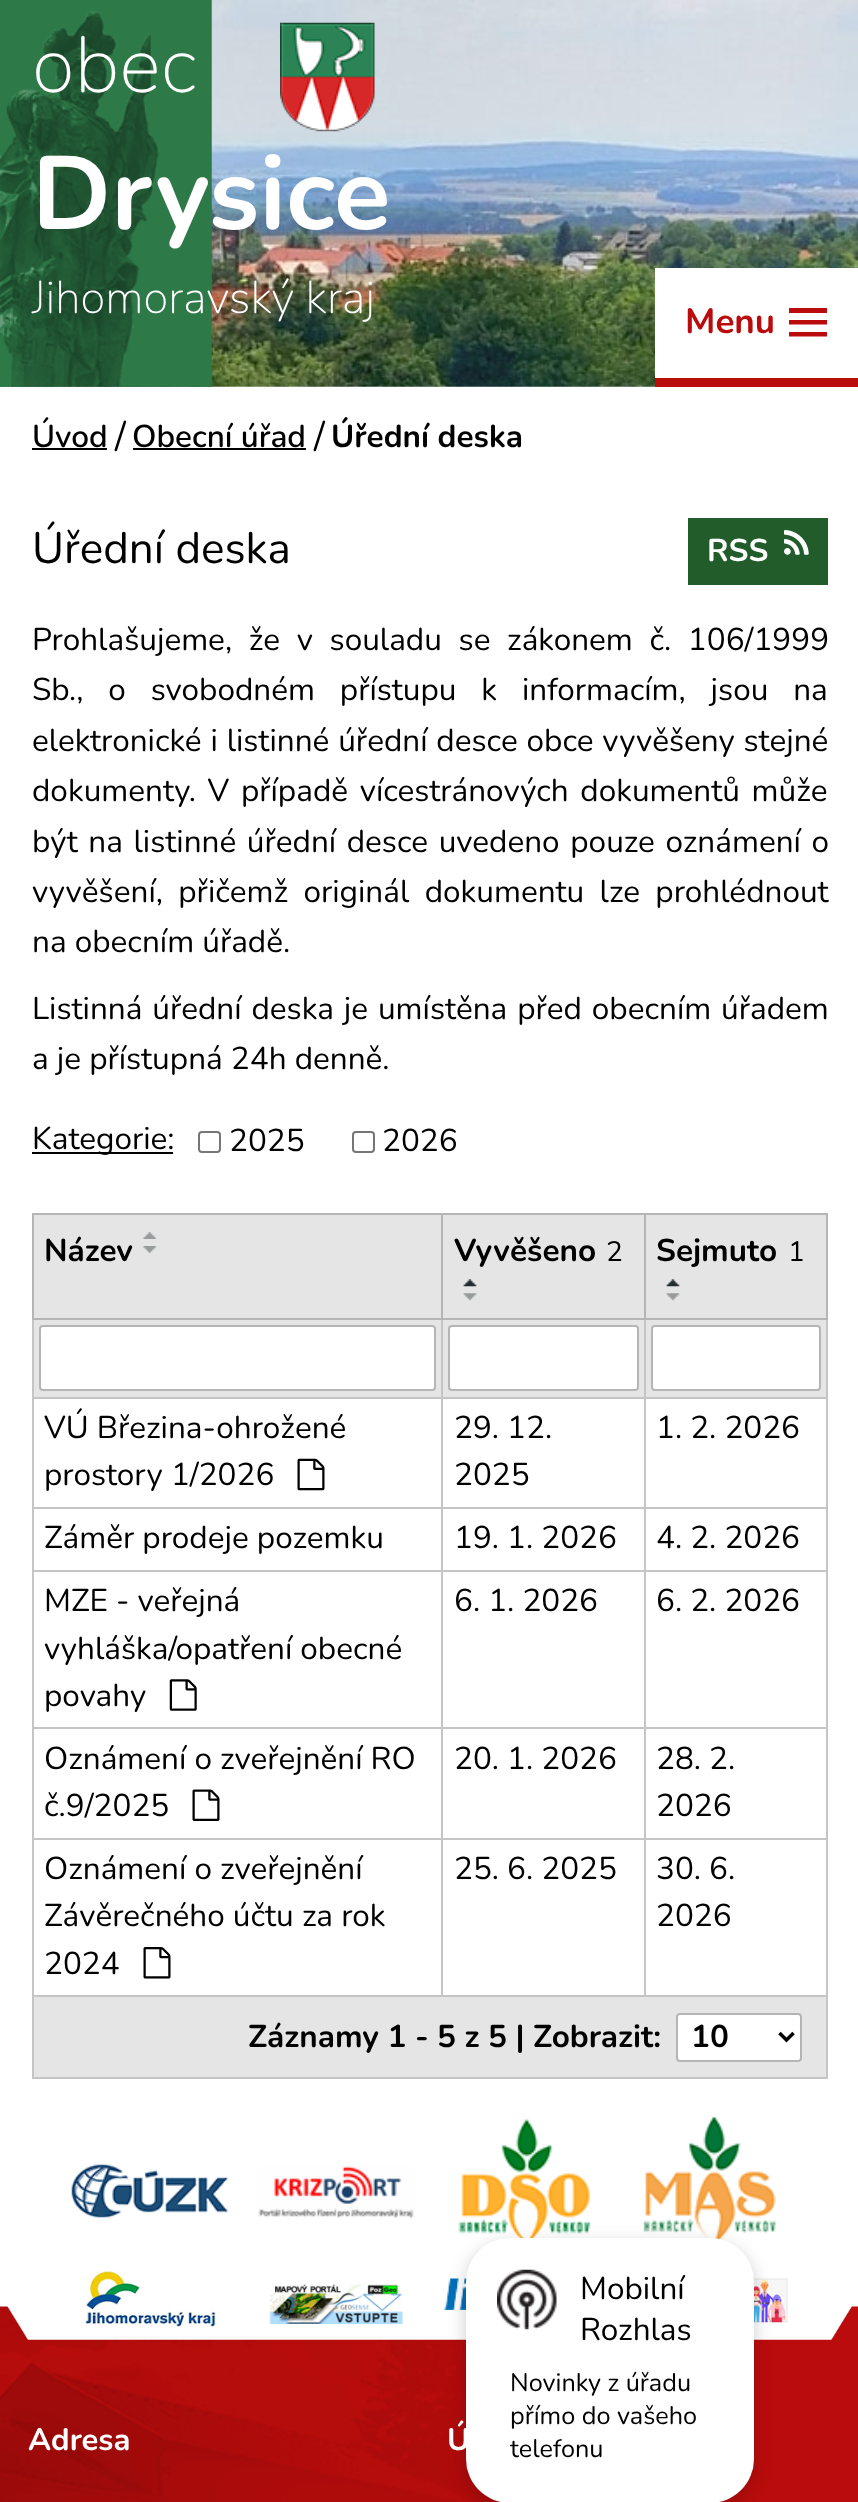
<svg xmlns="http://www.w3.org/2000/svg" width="858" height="2502">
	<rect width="100%" height="100%" fill="#FFFFFF" />
	<image x="0" y="0" width="858" height="387" href="assets/img1.png" />
	<image x="0" y="0" width="212" height="387" href="assets/img2.png" />
	<image x="280" y="22" width="95" height="110" href="assets/img3.png" />
	<text x="32" y="92" font-family="Nunito" font-size="79" font-weight="200" fill="#FFFFFF">obec</text>
	<text x="32" y="229" font-family="Nunito" font-size="104" font-weight="700" fill="#FFFFFF">Drysice</text>
	<text x="32" y="313" font-family="Nunito" font-size="45.75" font-weight="200" fill="#FFFFFF">Jihomoravský kraj</text>
	<rect x="655" y="268" width="203" height="110" fill="#FFFFFF" />
	<rect x="655" y="378" width="203" height="9" fill="#BA0C0C" />
	<text x="685" y="333" font-family="Nunito" font-size="35" font-weight="700" fill="#BA0C0C">Menu</text>
	<path d="M789 336.5V332H827V336.5ZM789 308H827V313H789ZM789 324.5V320H827V324.5Z" fill="#BA0C0C" />
	<text x="32" y="447" font-family="Nunito" font-size="31.5" font-weight="600" fill="#000000">Úvod</text>
	<rect x="32" y="448" width="75" height="2" fill="#000000" />
	<text x="115" y="449" font-family="Nunito" font-size="38" fill="#000000">/</text>
	<text x="132" y="447" font-family="Nunito" font-size="31.5" font-weight="600" fill="#000000">Obecní úřad</text>
	<rect x="133" y="448" width="173" height="2" fill="#000000" />
	<text x="314" y="449" font-family="Nunito" font-size="38" fill="#000000">/</text>
	<text x="331" y="447" font-family="Nunito" font-size="31.5" font-weight="700" fill="#000000">Úřední deska</text>
	<text x="32" y="563" font-family="Nunito" font-size="44" fill="#000000">Úřední deska</text>
	<rect x="688" y="518" width="140" height="67" fill="#215C2A" />
	<text x="707" y="561" font-family="Nunito" font-size="31.5" font-weight="700" fill="#FFFFFF">RSS</text>
	<image x="784" y="530" width="25" height="25" href="assets/img4.png" />
	<g font-family="Nunito" font-size="31.5" fill="#000000">
		<text x="32" y="650" word-spacing="8.5">Prohlašujeme, že v souladu se zákonem č. 106/1999</text>
		<text x="32" y="700" word-spacing="16.75">Sb., o svobodném přístupu k informacím, jsou na</text>
		<text x="32" y="751" word-spacing="0.75">elektronické i listinné úřední desce obce vyvěšeny stejné</text>
		<text x="32" y="801" word-spacing="3.5">dokumenty. V případě vícestránových dokumentů může</text>
		<text x="32" y="852" word-spacing="2.5">být na listinné úřední desce uvedeno pouze oznámení o</text>
		<text x="32" y="902" word-spacing="7.25">vyvěšení, přičemž originál dokumentu lze prohlédnout</text>
		<text x="32" y="952">na obecním úřadě.</text>
		<text x="32" y="1019" word-spacing="1.75">Listinná úřední deska je umístěna před obecním úřadem</text>
		<text x="32" y="1069">a je přístupná 24h denně.</text>
	</g>
	<rect x="32" y="1152" width="141" height="2" fill="#000000" />
	<text x="32" y="1149" font-family="Nunito" font-size="31.5" fill="#000000">Kategorie:</text>
	<rect x="199" y="1132" width="21" height="20" rx="3" fill="none" stroke="#767676" stroke-width="2" />
	<text x="229" y="1151" font-family="Nunito" font-size="31.5" fill="#000000">2025</text>
	<rect x="353" y="1132" width="21" height="20" rx="3" fill="none" stroke="#767676" stroke-width="2" />
	<text x="382" y="1151" font-family="Nunito" font-size="31.5" fill="#000000">2026</text>
	<rect x="34" y="1215" width="407" height="103" fill="#E5E5E5" />
	<rect x="644" y="1213" width="184" height="2" fill="#B5B5B5" />
	<rect x="644" y="1397" width="184" height="2" fill="#C5C5C5" />
	<rect x="644" y="1507" width="184" height="2" fill="#C5C5C5" />
	<rect x="644" y="1570" width="184" height="2" fill="#C5C5C5" />
	<rect x="644" y="1727" width="184" height="2" fill="#C5C5C5" />
	<rect x="644" y="1838" width="184" height="2" fill="#C5C5C5" />
	<rect x="826" y="1838" width="2" height="159" fill="#C5C5C5" />
	<rect x="826" y="1727" width="2" height="112" fill="#C5C5C5" />
	<rect x="826" y="1570" width="2" height="159" fill="#C5C5C5" />
	<rect x="826" y="1507" width="2" height="65" fill="#C5C5C5" />
	<rect x="826" y="1318" width="2" height="191" fill="#C5C5C5" />
	<rect x="826" y="1213" width="2" height="107" fill="#B5B5B5" />
	<rect x="34" y="1320" width="792" height="77" fill="#E5E5E5" />
	<rect x="644" y="1995" width="184" height="2" fill="#C5C5C5" />
	<rect x="644" y="1838" width="2" height="159" fill="#C5C5C5" />
	<rect x="441" y="1838" width="205" height="2" fill="#C5C5C5" />
	<rect x="644" y="1727" width="2" height="112" fill="#C5C5C5" />
	<rect x="441" y="1727" width="205" height="2" fill="#C5C5C5" />
	<rect x="644" y="1570" width="2" height="159" fill="#C5C5C5" />
	<rect x="441" y="1570" width="205" height="2" fill="#C5C5C5" />
	<rect x="644" y="1507" width="2" height="65" fill="#C5C5C5" />
	<rect x="441" y="1507" width="205" height="2" fill="#C5C5C5" />
	<rect x="644" y="1397" width="2" height="112" fill="#C5C5C5" />
	<rect x="441" y="1397" width="205" height="2" fill="#C5C5C5" />
	<rect x="644" y="1318" width="2" height="80" fill="#C5C5C5" />
	<rect x="644" y="1318" width="184" height="2" fill="#B5B5B5" />
	<rect x="644" y="1213" width="2" height="107" fill="#B5B5B5" />
	<rect x="441" y="1213" width="205" height="2" fill="#B5B5B5" />
	<rect x="441" y="1995" width="205" height="2" fill="#C5C5C5" />
	<rect x="441" y="1838" width="2" height="159" fill="#C5C5C5" />
	<rect x="32" y="1838" width="411" height="2" fill="#C5C5C5" />
	<rect x="441" y="1727" width="2" height="112" fill="#C5C5C5" />
	<rect x="32" y="1727" width="411" height="2" fill="#C5C5C5" />
	<rect x="441" y="1570" width="2" height="159" fill="#C5C5C5" />
	<rect x="32" y="1570" width="411" height="2" fill="#C5C5C5" />
	<rect x="441" y="1507" width="2" height="65" fill="#C5C5C5" />
	<rect x="32" y="1507" width="411" height="2" fill="#C5C5C5" />
	<rect x="441" y="1397" width="2" height="112" fill="#C5C5C5" />
	<rect x="32" y="1397" width="411" height="2" fill="#C5C5C5" />
	<rect x="441" y="1318" width="2" height="80" fill="#C5C5C5" />
	<rect x="441" y="1318" width="205" height="2" fill="#B5B5B5" />
	<rect x="441" y="1213" width="2" height="107" fill="#B5B5B5" />
	<rect x="32" y="1213" width="411" height="2" fill="#B5B5B5" />
	<rect x="32" y="1995" width="411" height="2" fill="#C5C5C5" />
	<rect x="32" y="1838" width="2" height="159" fill="#C5C5C5" />
	<rect x="32" y="1727" width="2" height="112" fill="#C5C5C5" />
	<rect x="32" y="1570" width="2" height="159" fill="#C5C5C5" />
	<rect x="32" y="1507" width="2" height="65" fill="#C5C5C5" />
	<rect x="32" y="1318" width="2" height="191" fill="#C5C5C5" />
	<rect x="32" y="1318" width="411" height="2" fill="#B5B5B5" />
	<rect x="32" y="1213" width="2" height="107" fill="#B5B5B5" />
	<text x="44" y="1261" font-family="Nunito" font-size="31.5" font-weight="700" fill="#000000">Název</text>
	<image x="143" y="1232" width="14" height="7" href="assets/img5.png" />
	<image x="143" y="1246" width="14" height="7" href="assets/img6.png" />
	<rect x="443" y="1215" width="201" height="103" fill="#E5E5E5" />
	<text x="454" y="1261" font-family="Nunito" font-size="31.5" font-weight="700" fill="#000000">Vyvěšeno</text>
	<text x="606" y="1261" font-family="Nunito" font-size="28" fill="#000000">2</text>
	<image x="463" y="1279" width="14" height="8" href="assets/img7.png" />
	<image x="463" y="1293" width="14" height="8" href="assets/img8.png" />
	<rect x="646" y="1215" width="180" height="103" fill="#E5E5E5" />
	<text x="656" y="1261" font-family="Nunito" font-size="31.5" font-weight="700" fill="#000000">Sejmuto</text>
	<text x="788" y="1261" font-family="Nunito" font-size="28" fill="#000000">1</text>
	<image x="666" y="1279" width="14" height="8" href="assets/img7.png" />
	<image x="666" y="1293" width="14" height="8" href="assets/img8.png" />
	<rect x="40" y="1326" width="395" height="64" rx="3" fill="#FFFFFF" stroke="#B5B5B5" stroke-width="2" />
	<rect x="449" y="1326" width="189" height="64" rx="3" fill="#FFFFFF" stroke="#B5B5B5" stroke-width="2" />
	<rect x="652" y="1326" width="168" height="64" rx="3" fill="#FFFFFF" stroke="#B5B5B5" stroke-width="2" />
	<g font-family="Nunito" font-size="31.5" fill="#000000">
		<text x="44" y="1438">VÚ Březina-ohrožené</text>
		<text x="44" y="1485">prostory 1/2026</text>
	</g>
	<image x="297" y="1458" width="28" height="33" href="assets/img9.png" />
	<g font-family="Nunito" font-size="31.5" fill="#000000">
		<text x="454" y="1438">29. 12.</text>
		<text x="454" y="1485">2025</text>
		<text x="656" y="1438">1. 2. 2026</text>
		<text x="44" y="1548">Záměr prodeje pozemku</text>
		<text x="454" y="1548">19. 1. 2026</text>
		<text x="656" y="1548">4. 2. 2026</text>
		<text x="44" y="1611">MZE - veřejná</text>
		<text x="44" y="1659">vyhláška/opatření obecné</text>
		<text x="44" y="1706">povahy</text>
	</g>
	<image x="169" y="1679" width="28" height="32" href="assets/img10.png" />
	<g font-family="Nunito" font-size="31.5" fill="#000000">
		<text x="454" y="1611">6. 1. 2026</text>
		<text x="656" y="1611">6. 2. 2026</text>
		<text x="44" y="1769">Oznámení o zveřejnění RO</text>
		<text x="44" y="1816">č.9/2025</text>
	</g>
	<image x="192" y="1789" width="28" height="32" href="assets/img11.png" />
	<g font-family="Nunito" font-size="31.5" fill="#000000">
		<text x="454" y="1769">20. 1. 2026</text>
		<text x="656" y="1769">28. 2.</text>
		<text x="656" y="1816">2026</text>
		<text x="44" y="1879">Oznámení o zveřejnění</text>
		<text x="44" y="1926">Závěrečného účtu za rok</text>
		<text x="44" y="1974">2024</text>
	</g>
	<image x="143" y="1947" width="28" height="32" href="assets/img12.png" />
	<g font-family="Nunito" font-size="31.5" fill="#000000">
		<text x="454" y="1879">25. 6. 2025</text>
		<text x="656" y="1879">30. 6.</text>
		<text x="656" y="1926">2026</text>
	</g>
	<rect x="34" y="1997" width="792" height="80" fill="#E5E5E5" />
	<rect x="826" y="1995" width="2" height="84" fill="#C5C5C5" />
	<rect x="32" y="2077" width="796" height="2" fill="#C5C5C5" />
	<rect x="32" y="1995" width="2" height="84" fill="#C5C5C5" />
	<text x="248" y="2047" font-family="Nunito" font-size="31.5" font-weight="700" fill="#000000">Záznamy 1 - 5 z 5 | Zobrazit:</text>
	<rect x="677" y="2014" width="124" height="47" rx="3" fill="#FFFFFF" stroke="#B5B5B5" stroke-width="2" />
	<path d="M779.5 2033L786.5 2040L793.5 2033" fill="none" stroke="#000000" stroke-width="3.5" />
	<text x="691" y="2047" font-family="Nunito" font-size="31.5" font-weight="700" fill="#000000">10</text>
	<image x="0" y="2306" width="858" height="196" href="assets/img14.png" />
	<image x="7" y="2306" width="845" height="34" href="assets/img15.png" />
	<image x="458" y="2118" width="133" height="126" href="assets/img18.png" />
	<image x="643" y="2116" width="134" height="129" href="assets/img19.png" />
	<image x="444" y="2278" width="23" height="32" href="assets/img22.png" />
	<image x="753" y="2278" width="35" height="45" href="assets/img23.png" />
	<rect x="466" y="2244" width="288" height="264" rx="44" fill="#000000" fill-opacity="0.2" filter="blur(9px)" />
	<rect x="466" y="2238" width="288" height="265" rx="44" fill="#FFFFFF" />
	<image x="497" y="2269" width="60" height="61" href="assets/img13.png" />
	<g font-family="Nunito" font-size="31.5" fill="#000000">
		<text x="580" y="2299">Mobilní</text>
		<text x="580" y="2340">Rozhlas</text>
	</g>
	<g font-family="Nunito" font-size="25.25" fill="#000000">
		<text x="510" y="2391">Novinky z úřadu</text>
		<text x="510" y="2424">přímo do vašeho</text>
		<text x="510" y="2457">telefonu</text>
	</g>
	<image x="71" y="2164" width="157" height="54" href="assets/img16.png" />
	<image x="258" y="2166" width="156" height="52" href="assets/img17.png" />
	<image x="84" y="2271" width="132" height="57" href="assets/img20.png" />
	<image x="269" y="2283" width="134" height="41" href="assets/img21.png" />
	<g font-family="Nunito" font-size="31" font-weight="700" fill="#FFFFFF">
		<text x="28" y="2450">Adresa</text>
		<text x="447" y="2450">Ú</text>
	</g>
</svg>
